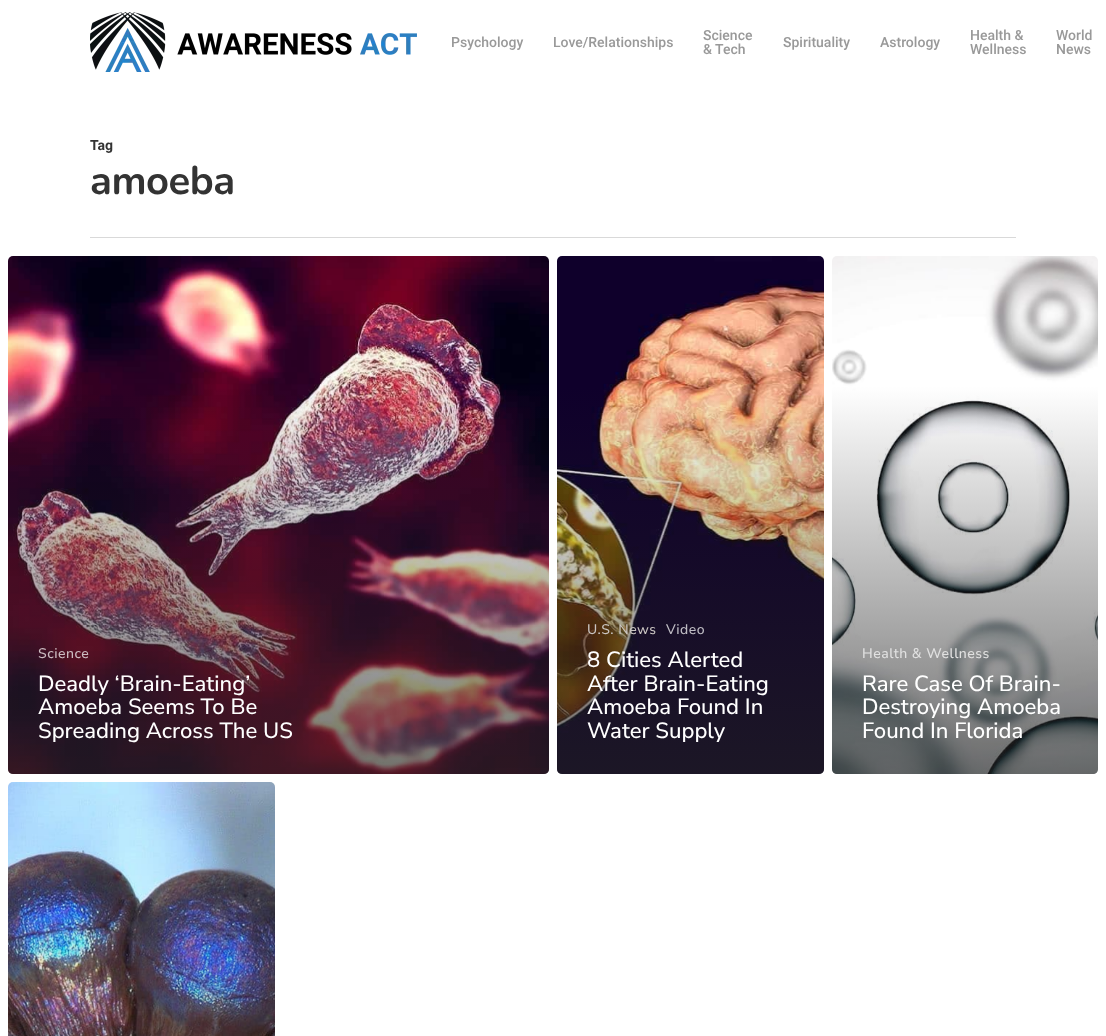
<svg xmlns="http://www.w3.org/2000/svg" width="1106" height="1036">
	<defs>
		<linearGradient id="g1" gradientUnits="userSpaceOnUse" x1="280" y1="386" x2="280" y2="777"><stop offset="0" stop-color="#232323" stop-opacity="0" /><stop offset="1" stop-color="#232323" stop-opacity="0.65" /></linearGradient>
		<linearGradient id="g2" gradientUnits="userSpaceOnUse" x1="691" y1="386" x2="691" y2="777"><stop offset="0" stop-color="#232323" stop-opacity="0" /><stop offset="1" stop-color="#232323" stop-opacity="0.65" /></linearGradient>
		<linearGradient id="g3" gradientUnits="userSpaceOnUse" x1="966" y1="386" x2="966" y2="777"><stop offset="0" stop-color="#232323" stop-opacity="0" /><stop offset="1" stop-color="#232323" stop-opacity="0.65" /></linearGradient>
	</defs>
	<rect width="100%" height="100%" fill="#FFFFFF" />
	<image x="90" y="12" width="327" height="60" href="assets/img1.png" />
	<g font-family="Roboto" font-size="14" font-weight="500" fill="#999999">
		<text x="451" y="47">Psychology</text>
		<text x="553" y="47">Love/Relationships</text>
		<text x="703" y="40">Science</text>
		<text x="703" y="54">&amp; Tech</text>
		<text x="783" y="47">Spirituality</text>
		<text x="880" y="47">Astrology</text>
		<text x="970" y="40">Health &amp;</text>
		<text x="970" y="54">Wellness</text>
		<text x="1056" y="40">World</text>
		<text x="1056" y="54">News</text>
	</g>
	<rect x="90" y="237" width="926" height="1" fill="#D9D9D9" />
	<text x="90" y="150" font-family="Roboto" font-size="14" font-weight="700" fill="#333333">Tag</text>
	<text x="90" y="194" font-family="Nunito" font-size="40" font-weight="700" letter-spacing="-0.5" fill="#333333">amoeba</text>
	<image x="8" y="256" width="541" height="518" href="assets/img2.png" />
	<path d="M8 386H549V769C549 772 547 774 544 774H13C10 774 8 772 8 769Z" fill="url(#g1)" />
	<text x="38" y="658" font-family="Nunito Sans" font-size="14" font-weight="500" letter-spacing="0.5" fill="#CCBCC1">Science</text>
	<g font-family="Nunito Sans" font-size="22.1" font-weight="500" fill="#FFFFFF">
		<text x="38" y="691">Deadly ‘Brain-Eating’</text>
		<text x="38" y="714">Amoeba Seems To Be</text>
		<text x="38" y="738">Spreading Across The US</text>
	</g>
	<image x="557" y="256" width="267" height="518" href="assets/img3.png" />
	<path d="M557 386H824V769C824 772 822 774 819 774H562C559 774 557 772 557 769Z" fill="url(#g2)" />
	<text x="587" y="634" font-family="Nunito Sans" font-size="14" font-weight="500" letter-spacing="0.5" fill="#CAC5C2">U.S. News</text>
	<text x="666" y="634" font-family="Nunito Sans" font-size="14" font-weight="500" letter-spacing="0.5" fill="#BEBCC3">Video</text>
	<g font-family="Nunito Sans" font-size="22.1" font-weight="500" fill="#FFFFFF">
		<text x="587" y="667">8 Cities Alerted</text>
		<text x="587" y="691">After Brain-Eating</text>
		<text x="587" y="714">Amoeba Found In</text>
		<text x="587" y="738">Water Supply</text>
	</g>
	<image x="832" y="256" width="266" height="518" href="assets/img4.png" />
	<path d="M832 386H1098V769C1098 772 1096 774 1093 774H837C834 774 832 772 832 769Z" fill="url(#g3)" />
	<text x="862" y="658" font-family="Nunito Sans" font-size="14" font-weight="500" letter-spacing="0.5" fill="#E1E1E1">Health &amp; Wellness</text>
	<g font-family="Nunito Sans" font-size="22.1" font-weight="500" fill="#FFFFFF">
		<text x="862" y="691">Rare Case Of Brain-</text>
		<text x="862" y="714">Destroying Amoeba</text>
		<text x="862" y="738">Found In Florida</text>
	</g>
	<image x="8" y="782" width="267" height="254" href="assets/img5.png" />
</svg>
